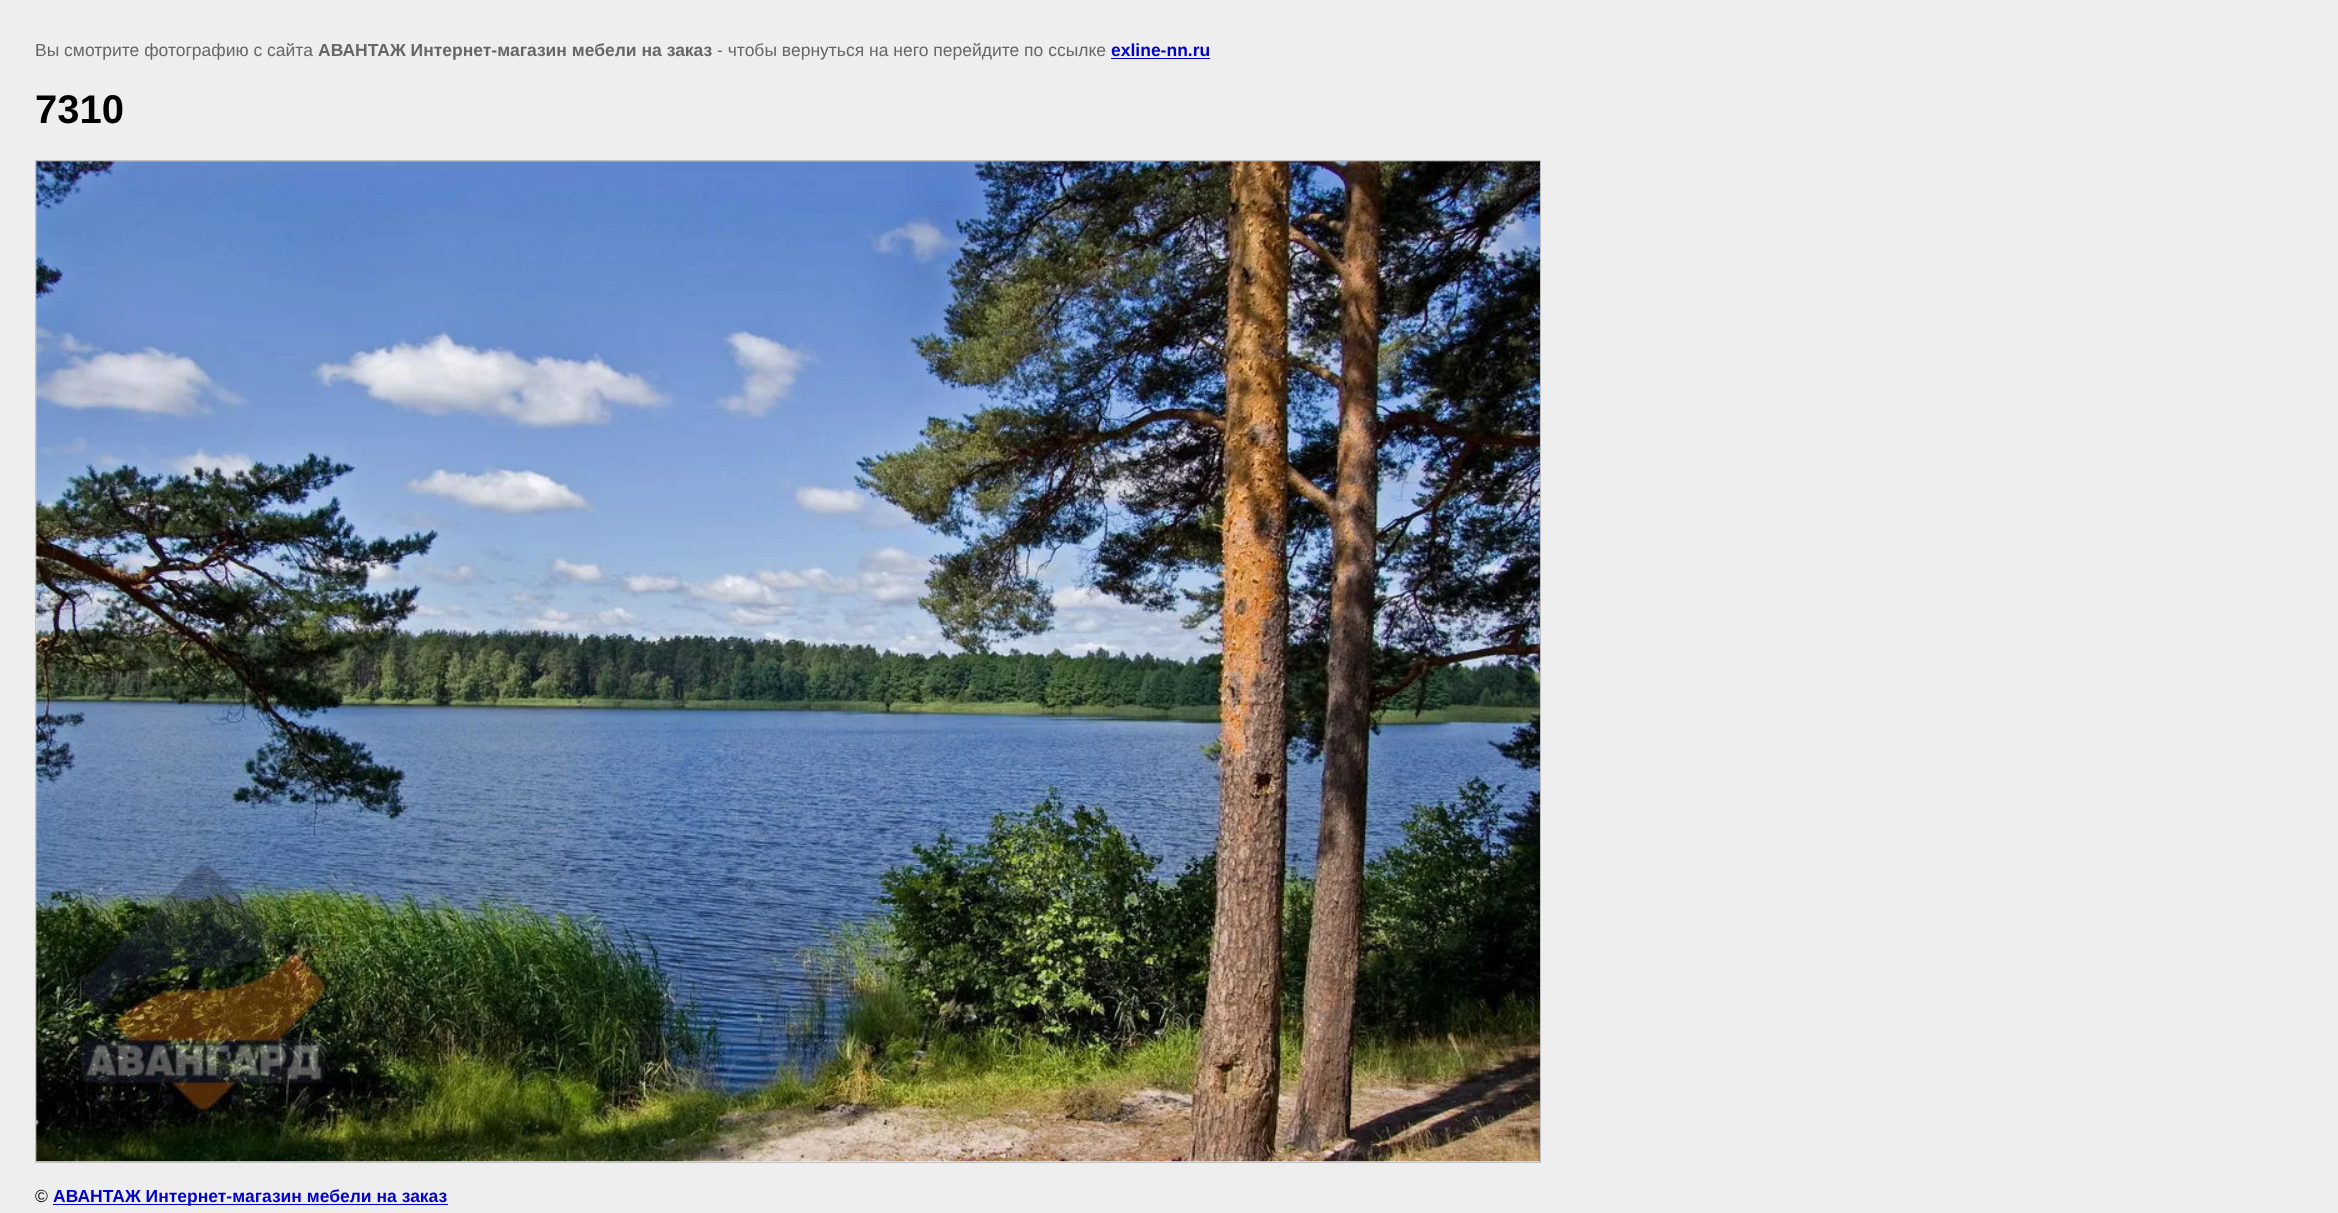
<svg xmlns="http://www.w3.org/2000/svg" width="2338" height="1213">
	<rect width="100%" height="100%" fill="#EEEEEE" />
	<text x="35" y="56" font-family="Liberation Sans" font-size="17.5" fill="#666666">Вы смотрите фотографию с сайта</text>
	<text x="318" y="56" font-family="Liberation Sans" font-size="17.5" font-weight="700" fill="#666666">АВАНТАЖ Интернет-магазин мебели на заказ</text>
	<text x="717" y="56" font-family="Liberation Sans" font-size="17.5" fill="#666666">- чтобы вернуться на него перейдите по ссылке</text>
	<text x="1111" y="56" font-family="Liberation Sans" font-size="17.5" font-weight="700" fill="#0000CC">exline-nn.ru</text>
	<rect x="1111" y="58" width="99" height="1" fill="#0000CC" />
	<text x="35" y="123" font-family="Liberation Sans" font-size="40" font-weight="700" fill="#000000">7310</text>
	<rect x="35.5" y="160.5" width="1505" height="1002" fill="none" stroke="#C0C0C0" />
	<image x="36" y="161" width="1504" height="1001" href="assets/img1.png" />
	<text x="35" y="1202" font-family="Liberation Sans" font-size="17.5" fill="#000000">©</text>
	<rect x="53" y="1204" width="395" height="1" fill="#0000CC" />
	<text x="53" y="1202" font-family="Liberation Sans" font-size="17.5" font-weight="700" fill="#0000CC">АВАНТАЖ Интернет-магазин мебели на заказ</text>
</svg>
